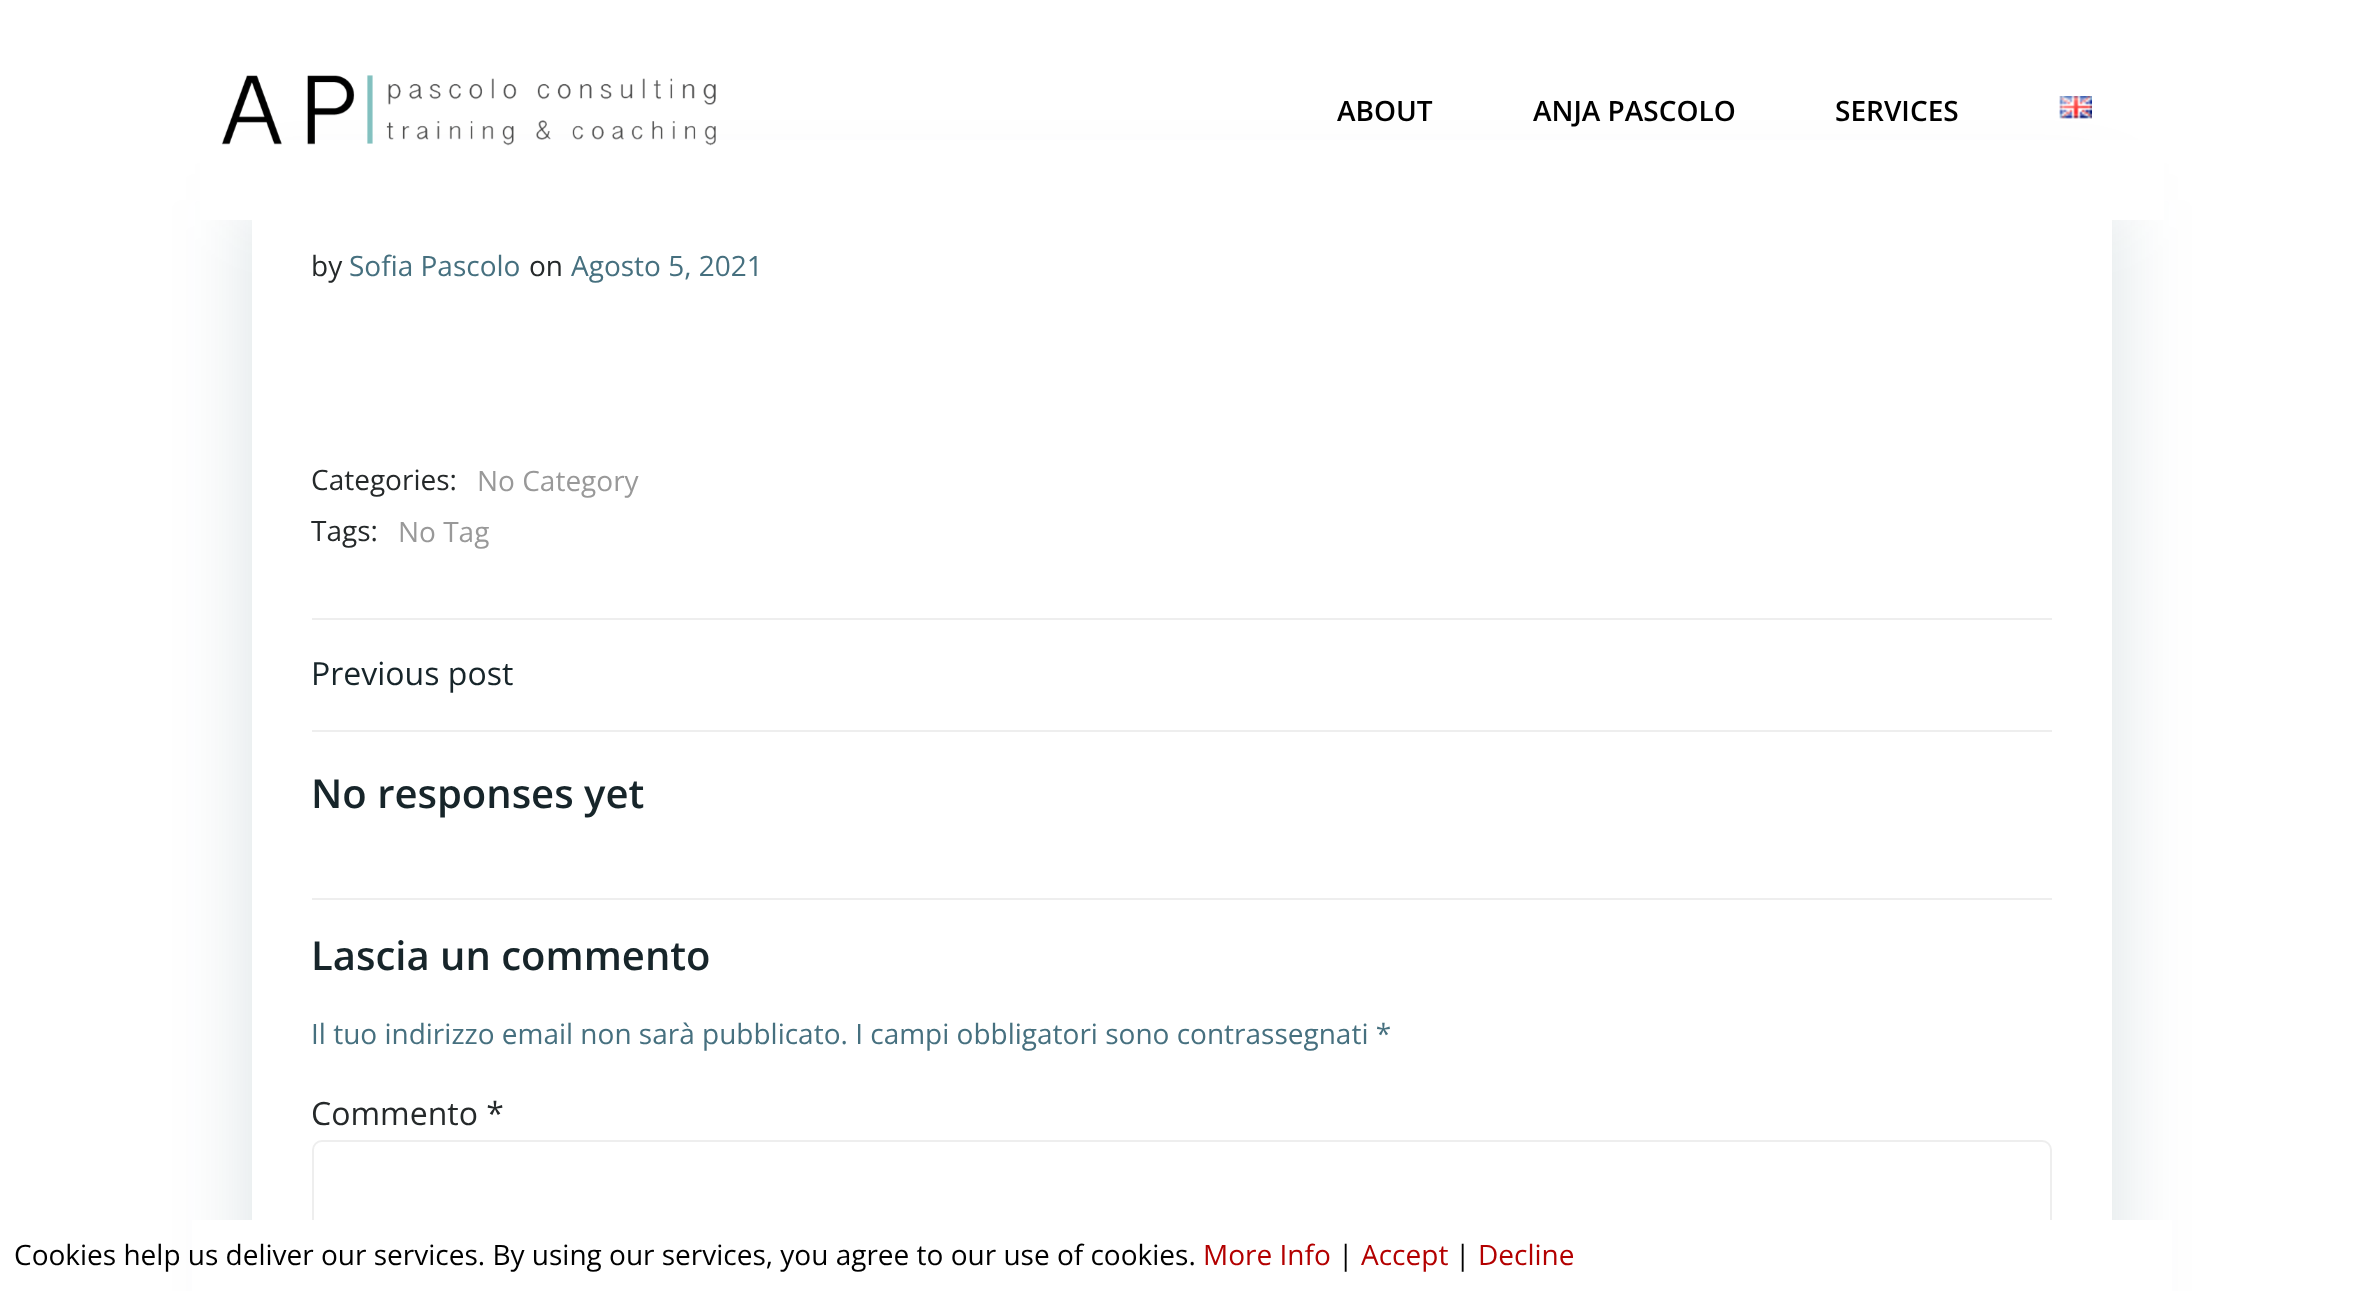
<svg xmlns="http://www.w3.org/2000/svg" width="2361" height="1291">
	<rect width="100%" height="100%" fill="#FFFFFF" />
	<rect x="252" y="200" width="1860" height="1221" rx="10" fill="#01334A" fill-opacity="0.15" filter="blur(40px)" />
	<rect x="200" y="140" width="1964" height="80" fill="#FFFFFF" />
	<image x="221" y="75" width="495" height="71" href="assets/img1.png" />
	<g font-family="Open Sans" font-size="28" font-weight="600" fill="#000000">
		<text x="1337" y="121">ABOUT</text>
		<text x="1533" y="121">ANJA PASCOLO</text>
		<text x="1835" y="121">SERVICES</text>
	</g>
	<image x="2059" y="96" width="33" height="23" href="assets/img2.png" />
	<rect x="252" y="220" width="1860" height="1000" fill="#FFFFFF" />
	<text x="311" y="276" font-family="Open Sans" font-size="28" fill="#25292A">by</text>
	<text x="349" y="276" font-family="Open Sans" font-size="28" fill="#46707F">Sofia Pascolo</text>
	<text x="529" y="276" font-family="Open Sans" font-size="28" fill="#25292A">on</text>
	<text x="571" y="276" font-family="Open Sans" font-size="28" fill="#46707F">Agosto 5, 2021</text>
	<text x="311" y="490" font-family="Open Sans" font-size="28" fill="#25292A">Categories:</text>
	<text x="477" y="491" font-family="Open Sans" font-size="28" fill="#999999">No Category</text>
	<text x="311" y="541" font-family="Open Sans" font-size="28" fill="#25292A">Tags:</text>
	<text x="398" y="542" font-family="Open Sans" font-size="28" fill="#999999">No Tag</text>
	<rect x="312" y="618" width="1740" height="2" fill="#EEEEEE" />
	<text x="311" y="685" font-family="Open Sans" font-size="32" fill="#17252A">Previous post</text>
	<rect x="312" y="730" width="1740" height="2" fill="#EEEEEE" />
	<text x="311" y="808" font-family="Open Sans" font-size="40" font-weight="600" fill="#17252A">No responses yet</text>
	<rect x="312" y="898" width="1740" height="2" fill="#EEEEEE" />
	<text x="311" y="970" font-family="Open Sans" font-size="40" font-weight="600" fill="#17252A">Lascia un commento</text>
	<text x="311" y="1044" font-family="Open Sans" font-size="28" fill="#46707F">Il tuo indirizzo email non sarà pubblicato. I campi obbligatori sono contrassegnati *</text>
	<text x="311" y="1125" font-family="Open Sans" font-size="32" fill="#25292A">Commento *</text>
	<rect x="313" y="1141" width="1738" height="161" rx="9" fill="none" stroke="#EEEEEE" stroke-width="2" />
	<rect x="192" y="1220" width="1980" height="71" fill="#FFFFFF" />
	<text x="14" y="1265" font-family="Open Sans" font-size="28" fill="#000000">Cookies help us deliver our services. By using our services, you agree to our use of cookies.</text>
	<text x="1203" y="1265" font-family="Open Sans" font-size="28" fill="#B30000">More Info</text>
	<text x="1338" y="1265" font-family="Open Sans" font-size="28" fill="#000000">|</text>
	<text x="1361" y="1265" font-family="Open Sans" font-size="28" fill="#B30000">Accept</text>
	<text x="1455" y="1265" font-family="Open Sans" font-size="28" fill="#000000">|</text>
	<text x="1478" y="1265" font-family="Open Sans" font-size="28" fill="#B30000">Decline</text>
</svg>
